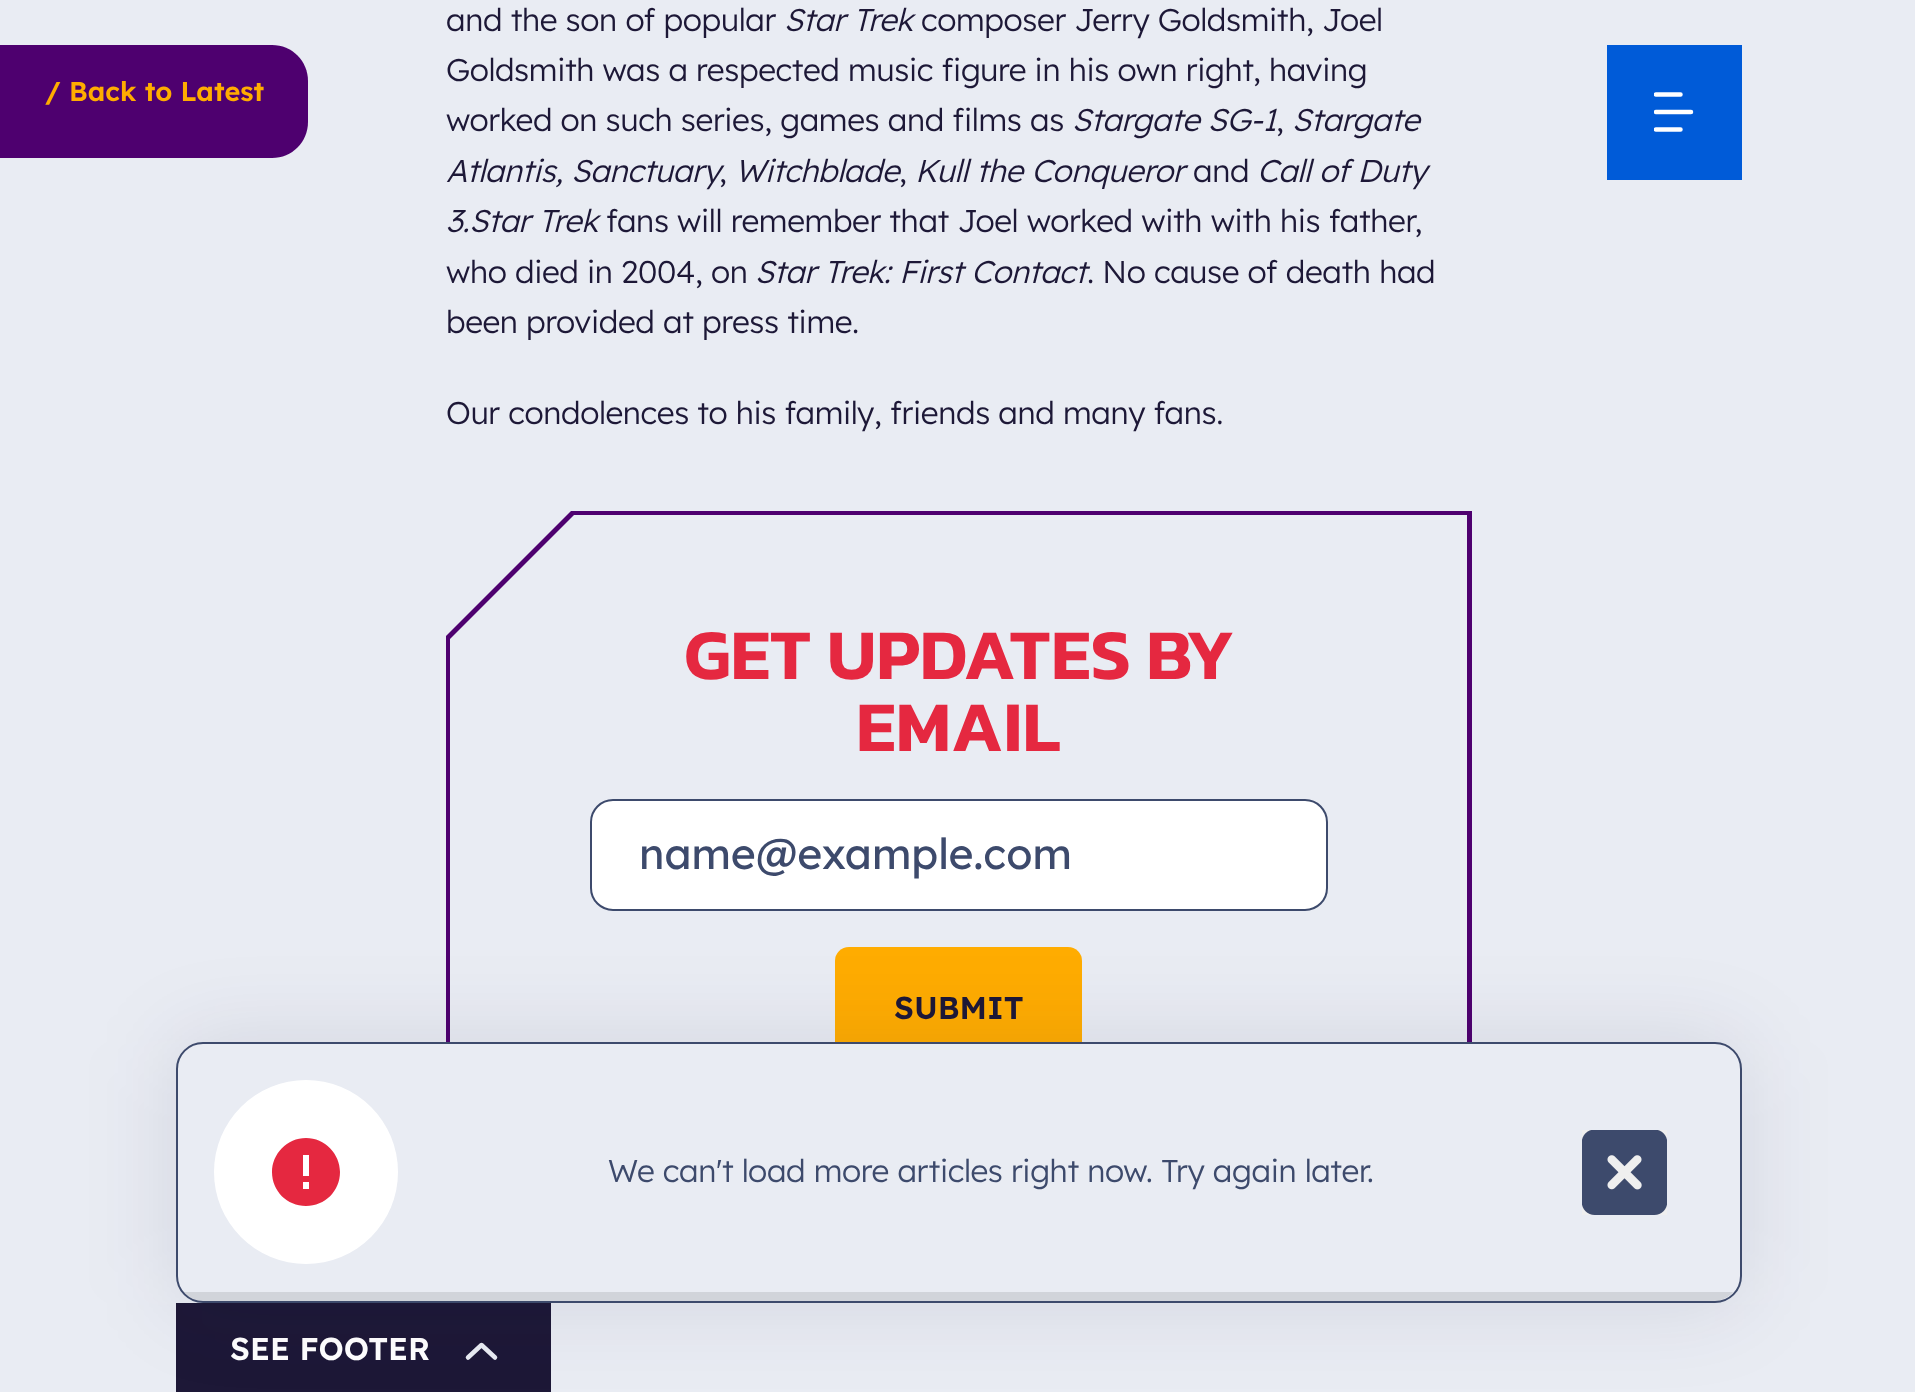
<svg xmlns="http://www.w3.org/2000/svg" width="1915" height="1392">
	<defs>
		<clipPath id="clip1"><rect x="1654" y="92" width="40" height="41" /></clipPath>
		<clipPath id="clip2"><rect x="178" y="1044" width="1561" height="257" rx="25" /></clipPath>
	</defs>
	<rect width="100%" height="100%" fill="#E9ECF3" />
	<path d="M0 45H272C292 45 308 61 308 81V122C308 142 292 158 272 158H0Z" fill="#4E006F" />
	<text x="45" y="101" font-family="Lexend" font-size="27" font-weight="600" fill="#FFAC00">/ Back to Latest</text>
	<text x="446" y="31" font-family="Lexend" font-size="31.5" font-weight="300" letter-spacing="-0.35" fill="#1D1837">and the son of popular</text>
	<text x="784" y="31" font-family="Lexend" font-size="31.5" font-weight="300" font-style="italic" letter-spacing="-0.35" fill="#1D1837">Star Trek</text>
	<g font-family="Lexend" font-size="31.5" font-weight="300" letter-spacing="-0.35" fill="#1D1837">
		<text x="921" y="31">composer Jerry Goldsmith, Joel</text>
		<text x="446" y="81">Goldsmith was a respected music figure in his own right, having</text>
		<text x="446" y="131">worked on such series, games and films as</text>
	</g>
	<text x="1072" y="131" font-family="Lexend" font-size="31.5" font-weight="300" font-style="italic" letter-spacing="-0.35" fill="#1D1837">Stargate SG-1</text>
	<text x="1276" y="131" font-family="Lexend" font-size="31.5" font-weight="300" letter-spacing="-0.35" fill="#1D1837">,</text>
	<g font-family="Lexend" font-size="31.5" font-weight="300" font-style="italic" letter-spacing="-0.35" fill="#1D1837">
		<text x="1292" y="131">Stargate</text>
		<text x="446" y="182">Atlantis, Sanctuary</text>
		<text x="735" y="182">Witchblade</text>
		<text x="915" y="182">Kull the Conqueror</text>
	</g>
	<text x="1193" y="182" font-family="Lexend" font-size="31.5" font-weight="300" letter-spacing="-0.35" fill="#1D1837">and</text>
	<text x="1257" y="182" font-family="Lexend" font-size="31.5" font-weight="300" font-style="italic" letter-spacing="-0.35" fill="#1D1837">Call of Duty</text>
	<g font-family="Lexend" font-size="31.5" font-weight="300" letter-spacing="-0.35" fill="#1D1837">
		<text x="719" y="182">,</text>
		<text x="899" y="182">,</text>
	</g>
	<text x="446" y="232" font-family="Lexend" font-size="31.5" font-weight="300" font-style="italic" letter-spacing="-0.35" fill="#1D1837">3.Star Trek</text>
	<g font-family="Lexend" font-size="31.5" font-weight="300" letter-spacing="-0.35" fill="#1D1837">
		<text x="606" y="232">fans will remember that Joel worked with with his father,</text>
		<text x="446" y="283">who died in 2004, on</text>
	</g>
	<text x="755" y="283" font-family="Lexend" font-size="31.5" font-weight="300" font-style="italic" letter-spacing="-0.35" fill="#1D1837">Star Trek: First Contact</text>
	<g font-family="Lexend" font-size="31.5" font-weight="300" letter-spacing="-0.35" fill="#1D1837">
		<text x="1087" y="283">. No cause of death had</text>
		<text x="446" y="333">been provided at press time.</text>
		<text x="446" y="424">Our condolences to his family, friends and many fans.</text>
	</g>
	<g font-family="Kanit" font-size="72" font-weight="600" fill="#E52840">
		<text x="684" y="679">GET UPDATES BY</text>
		<text x="856" y="751">EMAIL</text>
	</g>
	<rect x="591" y="800" width="736" height="110" rx="22" fill="#FFFFFF" stroke="#3D4A6C" stroke-width="2" />
	<text x="639" y="869" font-family="Lexend" font-size="42.75" fill="#3D4A6C">name@example.com</text>
	<rect x="835" y="947" width="247" height="122" rx="14" fill="#FFAC00" />
	<text x="894" y="1019" font-family="Lexend" font-size="31.5" font-weight="600" fill="#1D1837">SUBMIT</text>
	<path d="M1472 511V1051L1346 1177H446V636L571 511ZM450 1172V639L574 515H1467V1049L1343 1172Z" fill="#4E006F" fill-rule="evenodd" />
	<rect x="1607" y="45" width="135" height="135" fill="#005BD8" />
	<g clip-path="url(#clip1)">
		<path d="M1656 94.5H1680.5M1656 112H1691M1656 129.5H1680.5" fill="none" stroke="#FFFFFF" stroke-width="4.5" stroke-linecap="round" />
	</g>
	<rect x="176" y="1303" width="375" height="89" fill="#1D1837" />
	<text x="230" y="1360" font-family="Lexend" font-size="31.5" font-weight="600" fill="#FFFFFF">SEE FOOTER</text>
	<path d="M468 1357.5L481.5 1345L495 1357.5" fill="none" stroke="#E9ECF3" stroke-width="4.5" stroke-linecap="round" stroke-linejoin="round" />
	<rect x="173" y="1040" width="1571" height="265" rx="29" fill="#1D1837" fill-opacity="0.1" filter="blur(44px)" />
	<rect x="177" y="1043" width="1564" height="259" rx="26" fill="#E9ECF3" stroke="#3D4A6C" stroke-width="2" />
	<circle cx="306" cy="1172" r="92" fill="#FFFFFF" />
	<path d="M306 1206C287 1206 272 1191 272 1172C272 1154 287 1138 306 1138C325 1138 340 1154 340 1172C340 1191 325 1206 306 1206ZM303 1182V1189H309V1182ZM303 1155V1176H309V1155Z" fill="#E52840" />
	<text x="608" y="1182" font-family="Lexend" font-size="31.5" font-weight="300" letter-spacing="-0.35" fill="#3D4A6C">We can't load more articles right now. Try again later.</text>
	<rect x="1582" y="1130" width="85" height="85" fill="#EFEFEF" />
	<image x="1582" y="1130" width="85" height="85" href="assets/img1.png" />
	<g clip-path="url(#clip2)">
		<rect x="184" y="1292" width="1549" height="9" fill="#000000" fill-opacity="0.1" />
	</g>
</svg>
